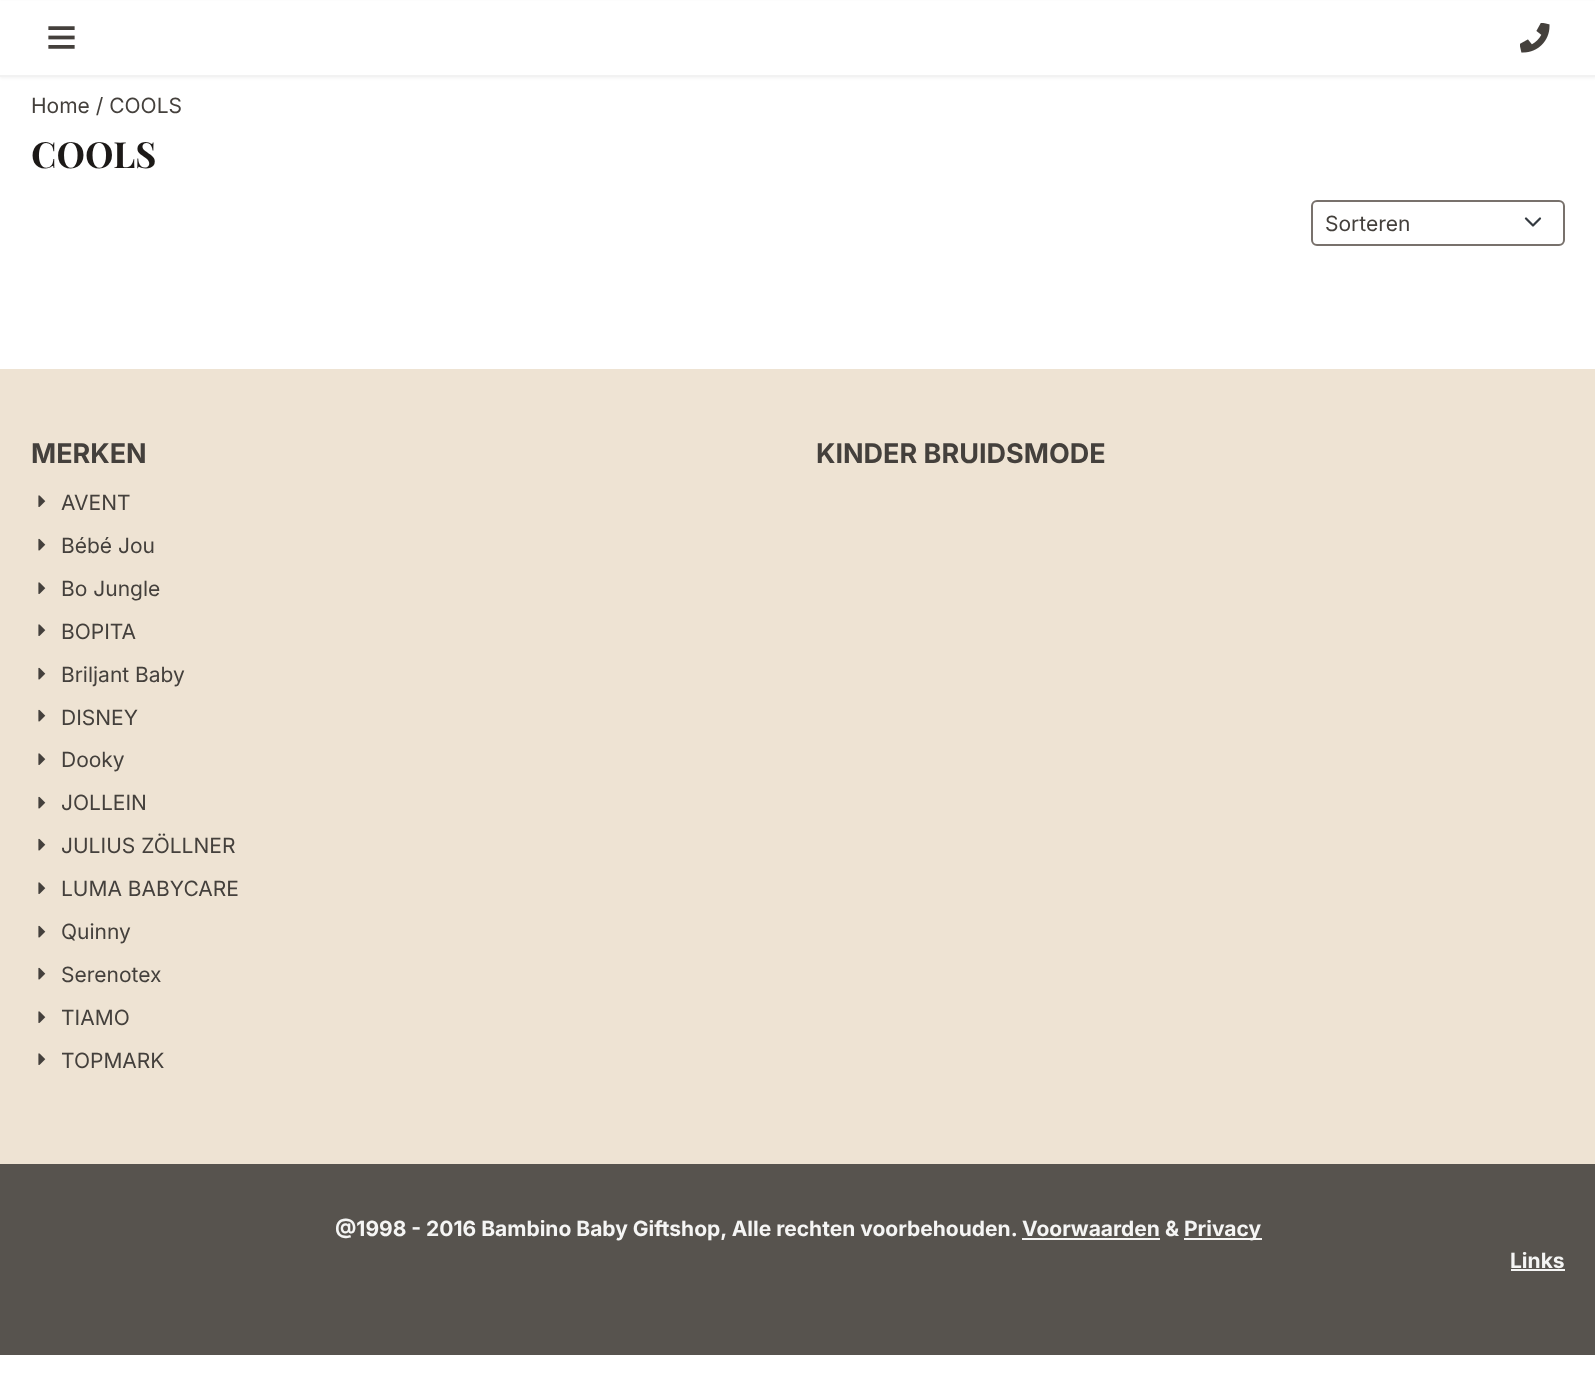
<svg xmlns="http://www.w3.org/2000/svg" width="1595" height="1373">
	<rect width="100%" height="100%" fill="#FFFFFF" />
	<rect x="0" y="2" width="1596" height="76" fill="#000000" fill-opacity="0.05" filter="blur(1.5px)" />
	<rect x="0" y="1" width="1595" height="74" fill="#FFFFFF" />
	<rect x="0" y="75" width="1595" height="2" fill="#F2F2F2" />
	<image x="48" y="26" width="27" height="23" href="assets/img1.png" />
	<image x="1520" y="23" width="30" height="30" href="assets/img2.png" />
	<text x="31" y="113" font-family="Inter" font-size="21" fill="#44403C">Home / COOLS</text>
	<text x="31" y="168" font-family="Playfair Display" font-size="36" font-weight="700" fill="#1C1917">COOLS</text>
	<path d="M1526 218.5L1533 225.5L1540 218.5" fill="none" stroke="#343A40" stroke-width="2.2" stroke-linecap="round" stroke-linejoin="round" />
	<rect x="1312" y="201" width="252" height="44" rx="5" fill="none" stroke="#78716C" stroke-width="2" />
	<text x="1325" y="231" font-family="Inter" font-size="21" fill="#44403C">Sorteren</text>
	<rect x="0" y="369" width="1595" height="795" fill="#EEE3D3" />
	<text x="31" y="463" font-family="Inter" font-size="27" font-weight="700" fill="#44403C">MERKEN</text>
	<image x="38" y="495" width="8" height="12" href="assets/img3.png" />
	<text x="61" y="510" font-family="Inter" font-size="21" fill="#44403C">AVENT</text>
	<image x="38" y="538" width="8" height="13" href="assets/img4.png" />
	<text x="61" y="553" font-family="Inter" font-size="21" fill="#44403C">Bébé Jou</text>
	<image x="38" y="582" width="8" height="12" href="assets/img3.png" />
	<text x="61" y="596" font-family="Inter" font-size="21" fill="#44403C">Bo Jungle</text>
	<image x="38" y="624" width="8" height="12" href="assets/img3.png" />
	<text x="61" y="639" font-family="Inter" font-size="21" fill="#44403C">BOPITA</text>
	<image x="38" y="667" width="8" height="13" href="assets/img4.png" />
	<text x="61" y="682" font-family="Inter" font-size="21" fill="#44403C">Briljant Baby</text>
	<image x="38" y="709" width="8" height="13" href="assets/img4.png" />
	<text x="61" y="725" font-family="Inter" font-size="21" fill="#44403C">DISNEY</text>
	<image x="38" y="753" width="8" height="12" href="assets/img3.png" />
	<text x="61" y="767" font-family="Inter" font-size="21" fill="#44403C">Dooky</text>
	<image x="38" y="796" width="8" height="13" href="assets/img4.png" />
	<text x="61" y="810" font-family="Inter" font-size="21" fill="#44403C">JOLLEIN</text>
	<image x="38" y="838" width="8" height="13" href="assets/img4.png" />
	<text x="61" y="853" font-family="Inter" font-size="21" fill="#44403C">JULIUS ZÖLLNER</text>
	<image x="38" y="882" width="8" height="12" href="assets/img3.png" />
	<text x="61" y="896" font-family="Inter" font-size="21" fill="#44403C">LUMA BABYCARE</text>
	<image x="38" y="925" width="8" height="13" href="assets/img4.png" />
	<text x="61" y="939" font-family="Inter" font-size="21" fill="#44403C">Quinny</text>
	<image x="38" y="967" width="8" height="13" href="assets/img4.png" />
	<text x="61" y="982" font-family="Inter" font-size="21" fill="#44403C">Serenotex</text>
	<image x="38" y="1011" width="8" height="12" href="assets/img3.png" />
	<text x="61" y="1025" font-family="Inter" font-size="21" fill="#44403C">TIAMO</text>
	<image x="38" y="1053" width="8" height="12" href="assets/img3.png" />
	<text x="61" y="1068" font-family="Inter" font-size="21" fill="#44403C">TOPMARK</text>
	<text x="816" y="463" font-family="Inter" font-size="27" font-weight="700" fill="#44403C">KINDER BRUIDSMODE</text>
	<rect x="0" y="1164" width="1595" height="191" fill="#57534E" />
	<text x="335" y="1236" font-family="Inter" font-size="21" font-weight="700" fill="#F5F5F4">@1998 - 2016 Bambino Baby Giftshop, Alle rechten voorbehouden. Voorwaarden &amp;</text>
	<rect x="1184" y="1238" width="78" height="2" fill="#F5F5F4" />
	<text x="1184" y="1236" font-family="Inter" font-size="21" font-weight="700" fill="#F5F5F4">Privacy</text>
	<rect x="1022" y="1238" width="138" height="2" fill="#F5F5F4" />
	<text x="1510" y="1268" font-family="Inter" font-size="21" font-weight="700" fill="#F5F5F4">Links</text>
	<rect x="1511" y="1269" width="54" height="2" fill="#F5F5F4" />
</svg>
